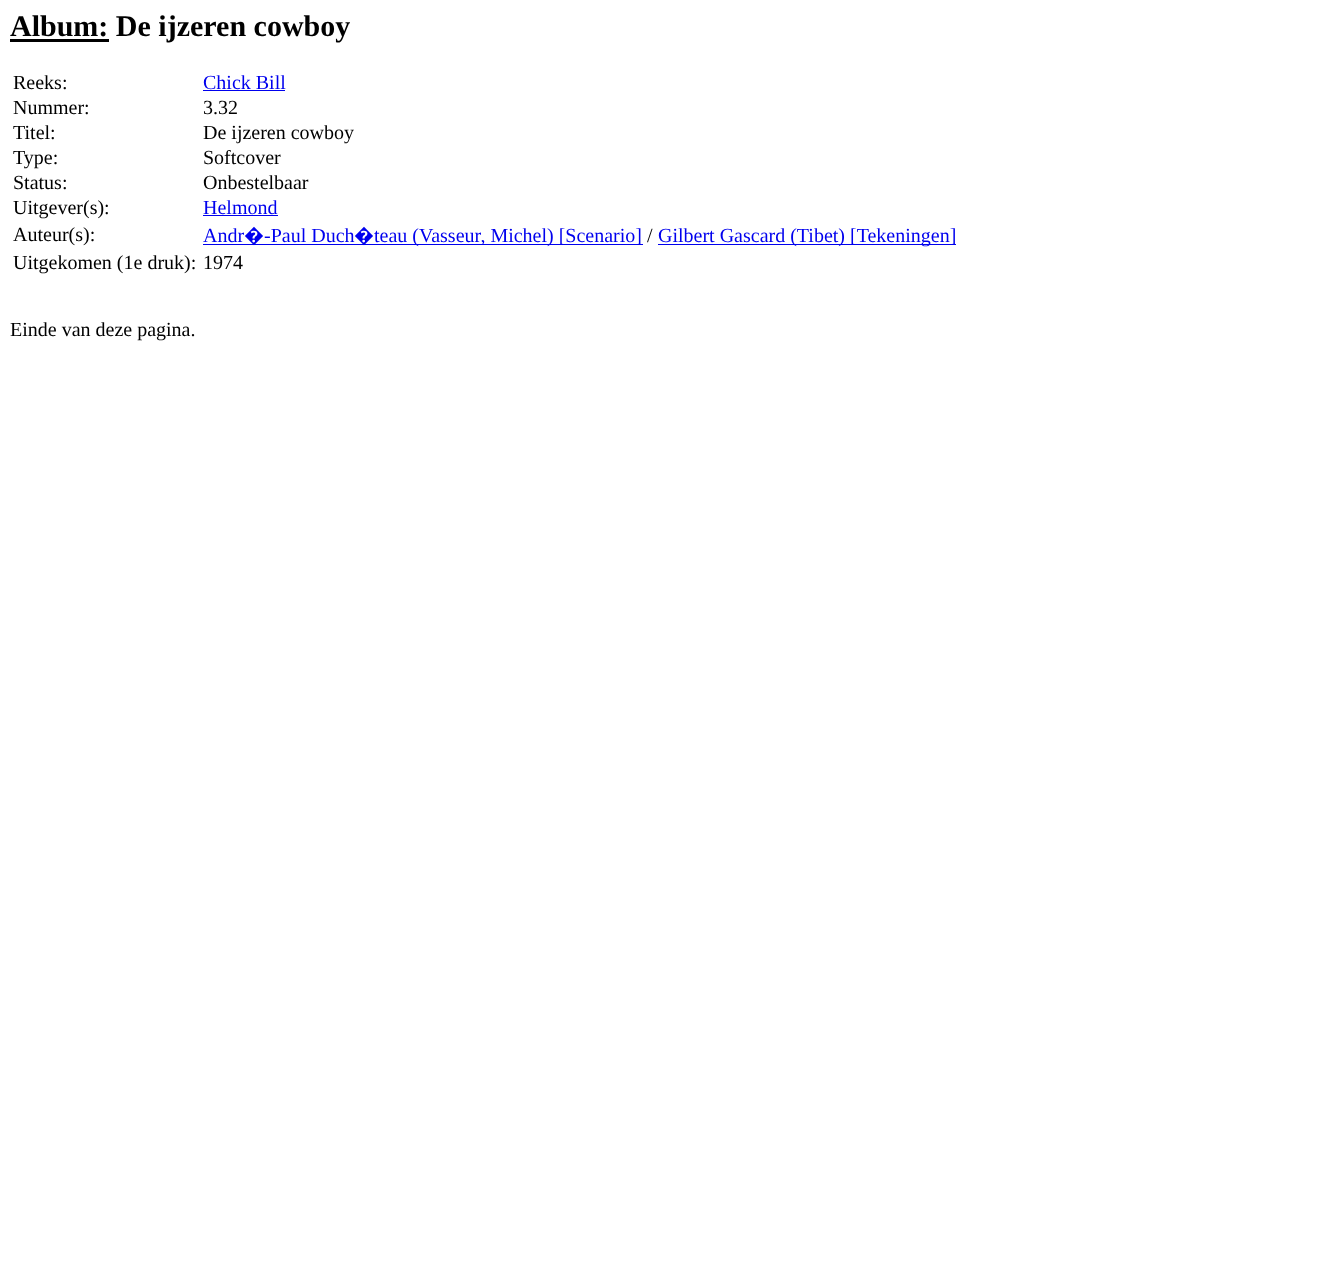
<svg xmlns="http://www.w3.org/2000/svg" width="1335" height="1262">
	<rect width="100%" height="100%" fill="#FFFFFF" />
	<rect x="10" y="39" width="99" height="3" fill="#000000" />
	<text x="10" y="36" font-family="Liberation Serif" font-size="30" font-weight="700" fill="#000000">Album: De ijzeren cowboy</text>
	<text x="13" y="89" font-family="Liberation Serif" font-size="20" fill="#000000">Reeks:</text>
	<text x="203" y="89" font-family="Liberation Serif" font-size="20" fill="#0000EE">Chick Bill</text>
	<rect x="203" y="90" width="82" height="1" fill="#0000EE" />
	<g font-family="Liberation Serif" font-size="20" fill="#000000">
		<text x="13" y="114">Nummer:</text>
		<text x="203" y="114">3.32</text>
		<text x="13" y="139">Titel:</text>
		<text x="203" y="139">De ijzeren cowboy</text>
		<text x="13" y="164">Type:</text>
		<text x="203" y="164">Softcover</text>
		<text x="13" y="189">Status:</text>
		<text x="203" y="189">Onbestelbaar</text>
		<text x="13" y="214">Uitgever(s):</text>
	</g>
	<text x="203" y="214" font-family="Liberation Serif" font-size="20" fill="#0000EE">Helmond</text>
	<rect x="203" y="215" width="75" height="1" fill="#0000EE" />
	<text x="13" y="241" font-family="Liberation Serif" font-size="20" fill="#000000">Auteur(s):</text>
	<text x="203" y="242" font-family="Liberation Serif" font-size="20" fill="#0000EE">Andr</text>
	<rect x="203" y="244" width="440" height="1" fill="#0000EE" />
	<text x="244" y="242" font-family="Noto Sans" font-size="20" fill="#0000EE">�</text>
	<text x="264" y="242" font-family="Liberation Serif" font-size="20" fill="#0000EE">-Paul Duch</text>
	<text x="354" y="242" font-family="Noto Sans" font-size="20" fill="#0000EE">�</text>
	<text x="374" y="242" font-family="Liberation Serif" font-size="20" fill="#0000EE">teau (Vasseur, Michel) [Scenario]</text>
	<text x="647" y="242" font-family="Liberation Serif" font-size="20" fill="#000000">/</text>
	<rect x="658" y="244" width="298" height="1" fill="#0000EE" />
	<text x="658" y="242" font-family="Liberation Serif" font-size="20" fill="#0000EE">Gilbert Gascard (Tibet) [Tekeningen]</text>
	<g font-family="Liberation Serif" font-size="20" fill="#000000">
		<text x="13" y="269">Uitgekomen (1e druk):</text>
		<text x="203" y="269">1974</text>
		<text x="10" y="336">Einde van deze pagina.</text>
	</g>
</svg>
